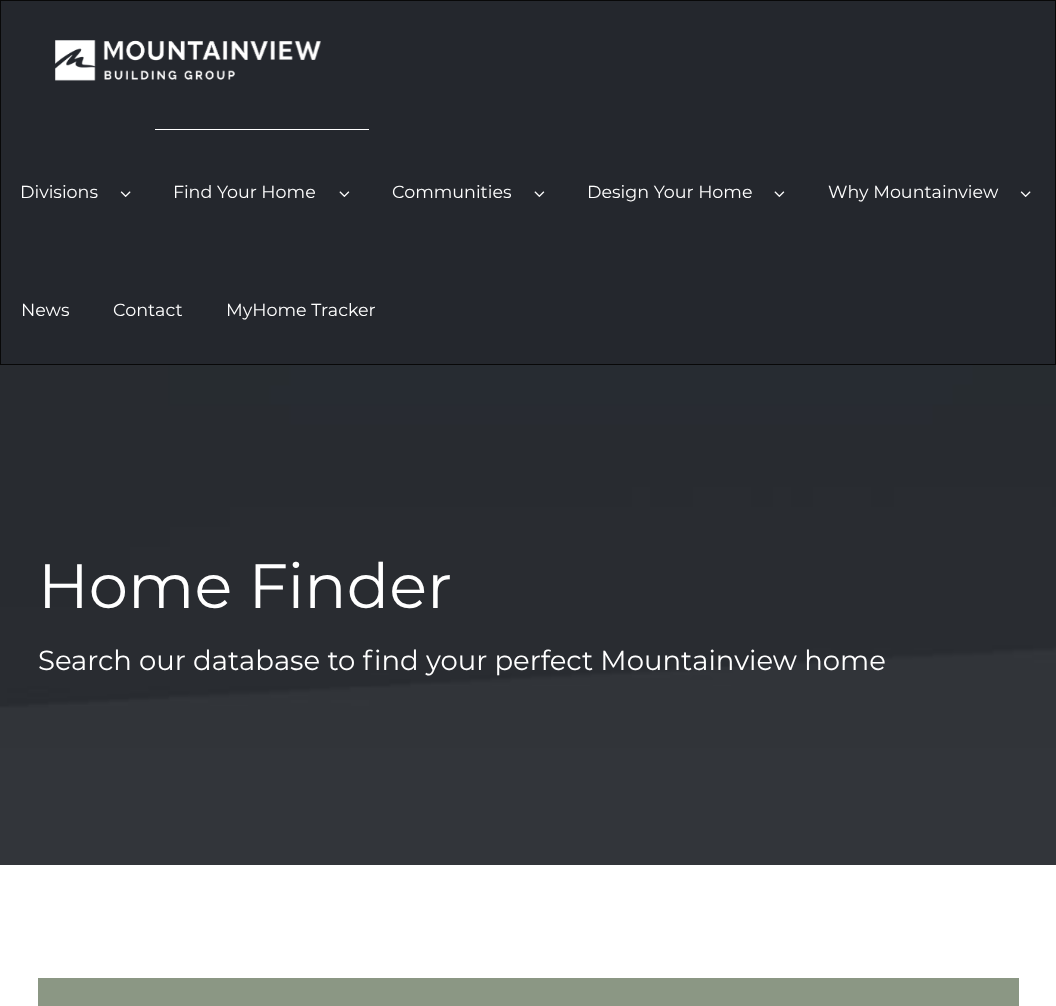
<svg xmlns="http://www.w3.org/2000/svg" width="1056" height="1006">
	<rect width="100%" height="100%" fill="#FFFFFF" />
	<rect x="0.5" y="0.5" width="1055" height="364" fill="#24272D" stroke="#080808" />
	<image x="55" y="40" width="266" height="41" href="assets/img1.png" />
	<text x="20" y="198" font-family="Montserrat" font-size="17.5" fill="#FFFFFF">Divisions</text>
	<image x="120" y="191" width="11" height="6" href="assets/img2.png" />
	<rect x="155" y="129" width="214" height="1" fill="#FFFFFF" />
	<text x="173" y="198" font-family="Montserrat" font-size="17.5" fill="#FFFFFF">Find Your Home</text>
	<image x="339" y="191" width="11" height="6" href="assets/img3.png" />
	<text x="392" y="198" font-family="Montserrat" font-size="17.5" fill="#FFFFFF">Communities</text>
	<image x="534" y="191" width="11" height="6" href="assets/img3.png" />
	<text x="587" y="198" font-family="Montserrat" font-size="17.5" fill="#FFFFFF">Design Your Home</text>
	<image x="774" y="191" width="11" height="6" href="assets/img3.png" />
	<text x="828" y="198" font-family="Montserrat" font-size="17.5" fill="#FFFFFF">Why Mountainview</text>
	<image x="1020" y="191" width="11" height="6" href="assets/img2.png" />
	<g font-family="Montserrat" font-size="17.5" fill="#FFFFFF">
		<text x="21" y="316">News</text>
		<text x="113" y="316">Contact</text>
		<text x="226" y="316">MyHome Tracker</text>
	</g>
	<image x="0" y="365" width="1056" height="500" href="assets/img4.png" />
	<text x="38" y="608" font-family="Montserrat" font-size="62.5" fill="#FFFFFF">Home Finder</text>
	<text x="38" y="670" font-family="Montserrat" font-size="27.5" fill="#FFFFFF">Search our database to find your perfect Mountainview home</text>
	<rect x="38" y="978" width="981" height="28" fill="#8B9784" />
</svg>
